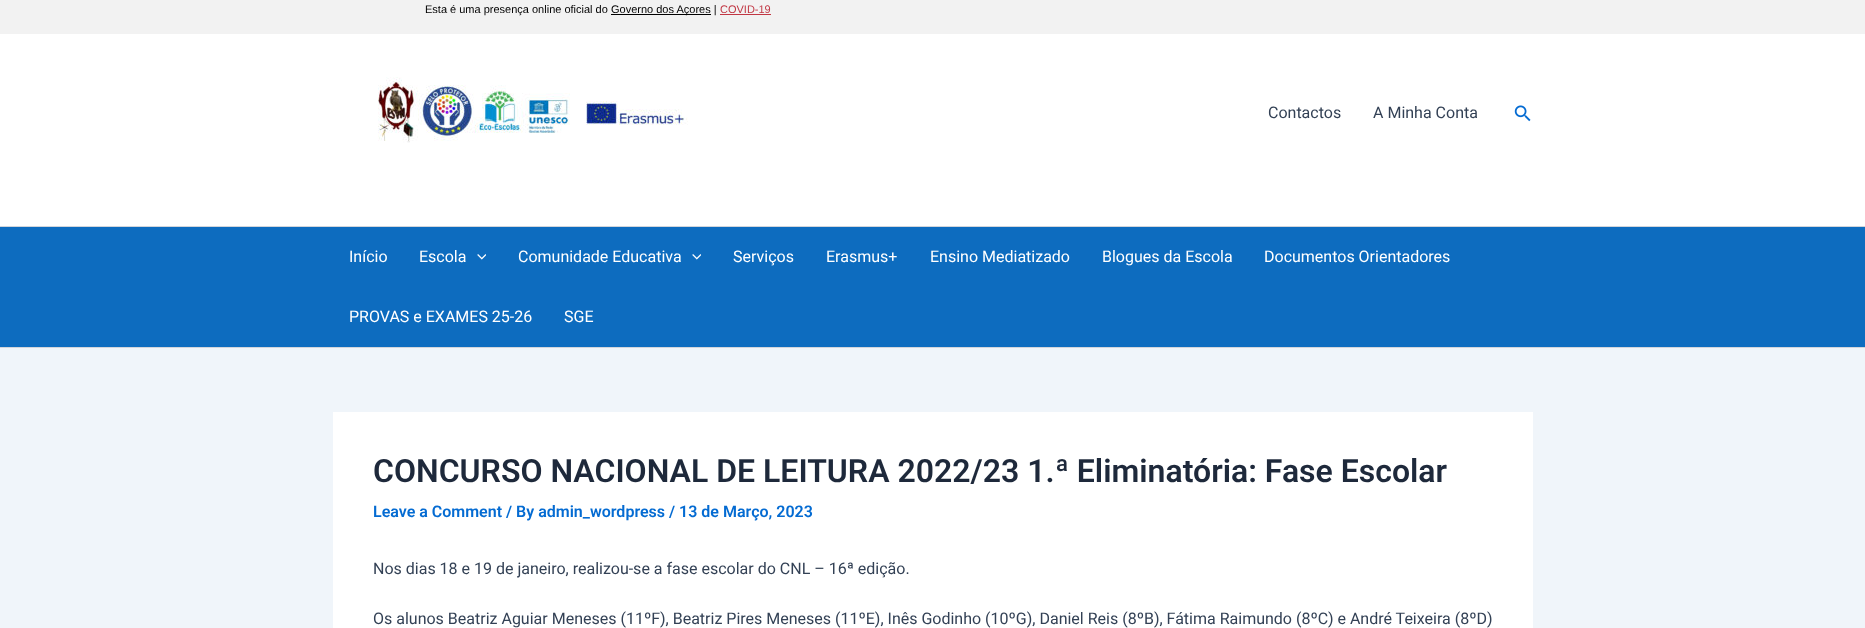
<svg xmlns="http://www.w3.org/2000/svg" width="1865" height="628">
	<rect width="100%" height="100%" fill="#F0F5FA" />
	<rect x="0" y="0" width="1865" height="34" fill="#F2F2F2" />
	<text x="425" y="13" font-family="Liberation Sans" font-size="11" fill="#000000">Esta é uma presença online oficial do</text>
	<rect x="611" y="14" width="100" height="1" fill="#000000" />
	<text x="611" y="13" font-family="Liberation Sans" font-size="11" fill="#000000">Governo dos Açores |</text>
	<text x="720" y="13" font-family="Liberation Sans" font-size="11" fill="#C13744">COVID-19</text>
	<rect x="720" y="14" width="51" height="1" fill="#C13744" />
	<rect x="0" y="34" width="1865" height="192" fill="#FFFFFF" />
	<rect x="0" y="226" width="1865" height="1" fill="#D1D5DB" />
	<image x="378" y="77" width="310" height="66" href="assets/img1.png" />
	<g font-family="Roboto" font-size="16" fill="#334155">
		<text x="1268" y="118">Contactos</text>
		<text x="1373" y="118">A Minha Conta</text>
	</g>
	<image x="1514" y="105" width="17" height="17" href="assets/img2.png" />
	<rect x="0" y="227" width="1865" height="120" fill="#0D6CBF" />
	<rect x="0" y="347" width="1865" height="1" fill="#D1D5DB" />
	<g font-family="Roboto" font-size="16" fill="#FFFFFF">
		<text x="349" y="262">Início</text>
		<text x="419" y="262">Escola</text>
	</g>
	<image x="477" y="254" width="9" height="6" href="assets/img3.png" />
	<text x="518" y="262" font-family="Roboto" font-size="16" fill="#FFFFFF">Comunidade Educativa</text>
	<image x="692" y="254" width="9" height="6" href="assets/img3.png" />
	<g font-family="Roboto" font-size="16" fill="#FFFFFF">
		<text x="733" y="262">Serviços</text>
		<text x="826" y="262">Erasmus+</text>
		<text x="930" y="262">Ensino Mediatizado</text>
		<text x="1102" y="262">Blogues da Escola</text>
		<text x="1264" y="262">Documentos Orientadores</text>
		<text x="349" y="322">PROVAS e EXAMES 25-26</text>
		<text x="564" y="322">SGE</text>
	</g>
	<rect x="333" y="412" width="1200" height="216" fill="#FFFFFF" />
	<text x="373" y="482" font-family="Roboto" font-size="32" font-weight="600" fill="#1E293B">CONCURSO NACIONAL DE LEITURA 2022/23 1.ª Eliminatória: Fase Escolar</text>
	<text x="373" y="517" font-family="Roboto" font-size="16" font-weight="600" fill="#046BD2">Leave a Comment / By admin_wordpress / 13 de Março, 2023</text>
	<g font-family="Roboto" font-size="16" fill="#334155">
		<text x="373" y="574">Nos dias 18 e 19 de janeiro, realizou-se a fase escolar do CNL – 16ª edição.</text>
		<text x="373" y="624">Os alunos Beatriz Aguiar Meneses (11ºF), Beatriz Pires Meneses (11ºE), Inês Godinho (10ºG), Daniel Reis (8ºB), Fátima Raimundo (8ºC) e André Teixeira (8ºD)</text>
	</g>
</svg>
